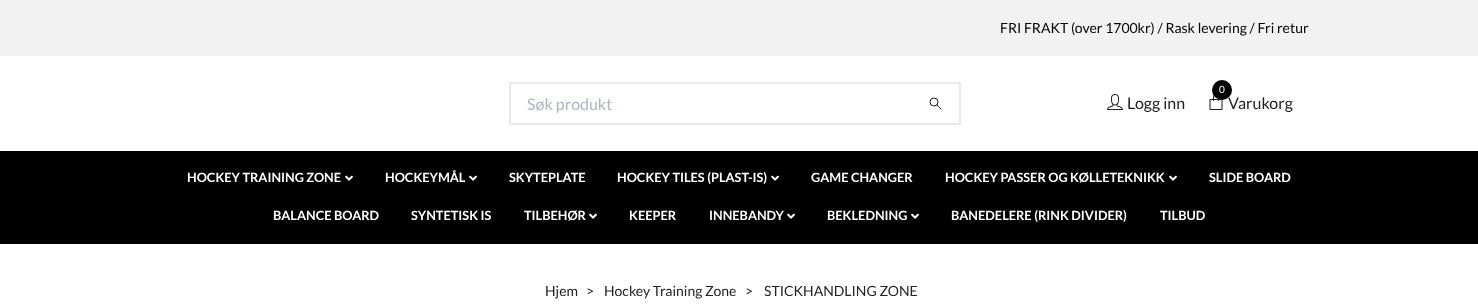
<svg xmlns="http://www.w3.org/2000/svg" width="1478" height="307">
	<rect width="100%" height="100%" fill="#FFFFFF" />
	<rect x="0" y="0" width="1478" height="56" fill="#F2F2F2" />
	<text x="1000" y="33" font-family="Lato" font-size="14" fill="#000000">FRI FRAKT (over 1700kr) / Rask levering / Fri retur</text>
	<rect x="510" y="83" width="450" height="41" fill="none" stroke="#E9E9E9" stroke-width="2" />
	<text x="527" y="110" font-family="Lato" font-size="16" fill="#ADB5BD">Søk produkt</text>
	<path d="M937 105L941 109" fill="none" stroke="#222222" stroke-linecap="round" stroke-linejoin="round" />
	<circle cx="934" cy="102" r="4" fill="none" stroke="#222222" />
	<image x="1107" y="94" width="16" height="16" href="assets/img1.png" />
	<text x="1127" y="109" font-family="Lato" font-size="16" fill="#222222">Logg inn</text>
	<image x="1209" y="94" width="14" height="16" href="assets/img2.png" />
	<text x="1228" y="109" font-family="Lato" font-size="16" fill="#222222">Varukorg</text>
	<circle cx="1222" cy="90" r="10" fill="#000000" />
	<text x="1219" y="93" font-family="Lato" font-size="10" fill="#FFFFFF">0</text>
	<rect x="0" y="151" width="1478" height="93" fill="#000000" />
	<text x="187" y="182" font-family="Lato" font-size="12.75" font-weight="700" fill="#FFFFFF">HOCKEY TRAINING ZONE</text>
	<image x="345" y="175" width="8" height="6" href="assets/img3.png" />
	<text x="385" y="182" font-family="Lato" font-size="12.75" font-weight="700" fill="#FFFFFF">HOCKEYMÅL</text>
	<image x="469" y="175" width="8" height="6" href="assets/img3.png" />
	<g font-family="Lato" font-size="12.75" font-weight="700" fill="#FFFFFF">
		<text x="509" y="182">SKYTEPLATE</text>
		<text x="617" y="182">HOCKEY TILES (PLAST-IS)</text>
	</g>
	<image x="771" y="175" width="8" height="6" href="assets/img3.png" />
	<g font-family="Lato" font-size="12.75" font-weight="700" fill="#FFFFFF">
		<text x="811" y="182">GAME CHANGER</text>
		<text x="945" y="182">HOCKEY PASSER OG KØLLETEKNIKK</text>
	</g>
	<image x="1169" y="175" width="8" height="6" href="assets/img3.png" />
	<g font-family="Lato" font-size="12.75" font-weight="700" fill="#FFFFFF">
		<text x="1209" y="182">SLIDE BOARD</text>
		<text x="273" y="220">BALANCE BOARD</text>
		<text x="411" y="220">SYNTETISK IS</text>
		<text x="524" y="220">TILBEHØR</text>
	</g>
	<image x="589" y="213" width="8" height="6" href="assets/img3.png" />
	<g font-family="Lato" font-size="12.75" font-weight="700" fill="#FFFFFF">
		<text x="629" y="220">KEEPER</text>
		<text x="709" y="220">INNEBANDY</text>
	</g>
	<image x="787" y="213" width="8" height="6" href="assets/img3.png" />
	<text x="827" y="220" font-family="Lato" font-size="12.75" font-weight="700" fill="#FFFFFF">BEKLEDNING</text>
	<image x="911" y="213" width="8" height="6" href="assets/img3.png" />
	<g font-family="Lato" font-size="12.75" font-weight="700" fill="#FFFFFF">
		<text x="951" y="220">BANEDELERE (RINK DIVIDER)</text>
		<text x="1160" y="220">TILBUD</text>
	</g>
	<g font-family="Lato" font-size="14" fill="#222222">
		<text x="545" y="296">Hjem</text>
		<text x="586" y="296">&gt;</text>
		<text x="604" y="296">Hockey Training Zone</text>
		<text x="745" y="296">&gt;</text>
		<text x="764" y="296">STICKHANDLING ZONE</text>
	</g>
</svg>
